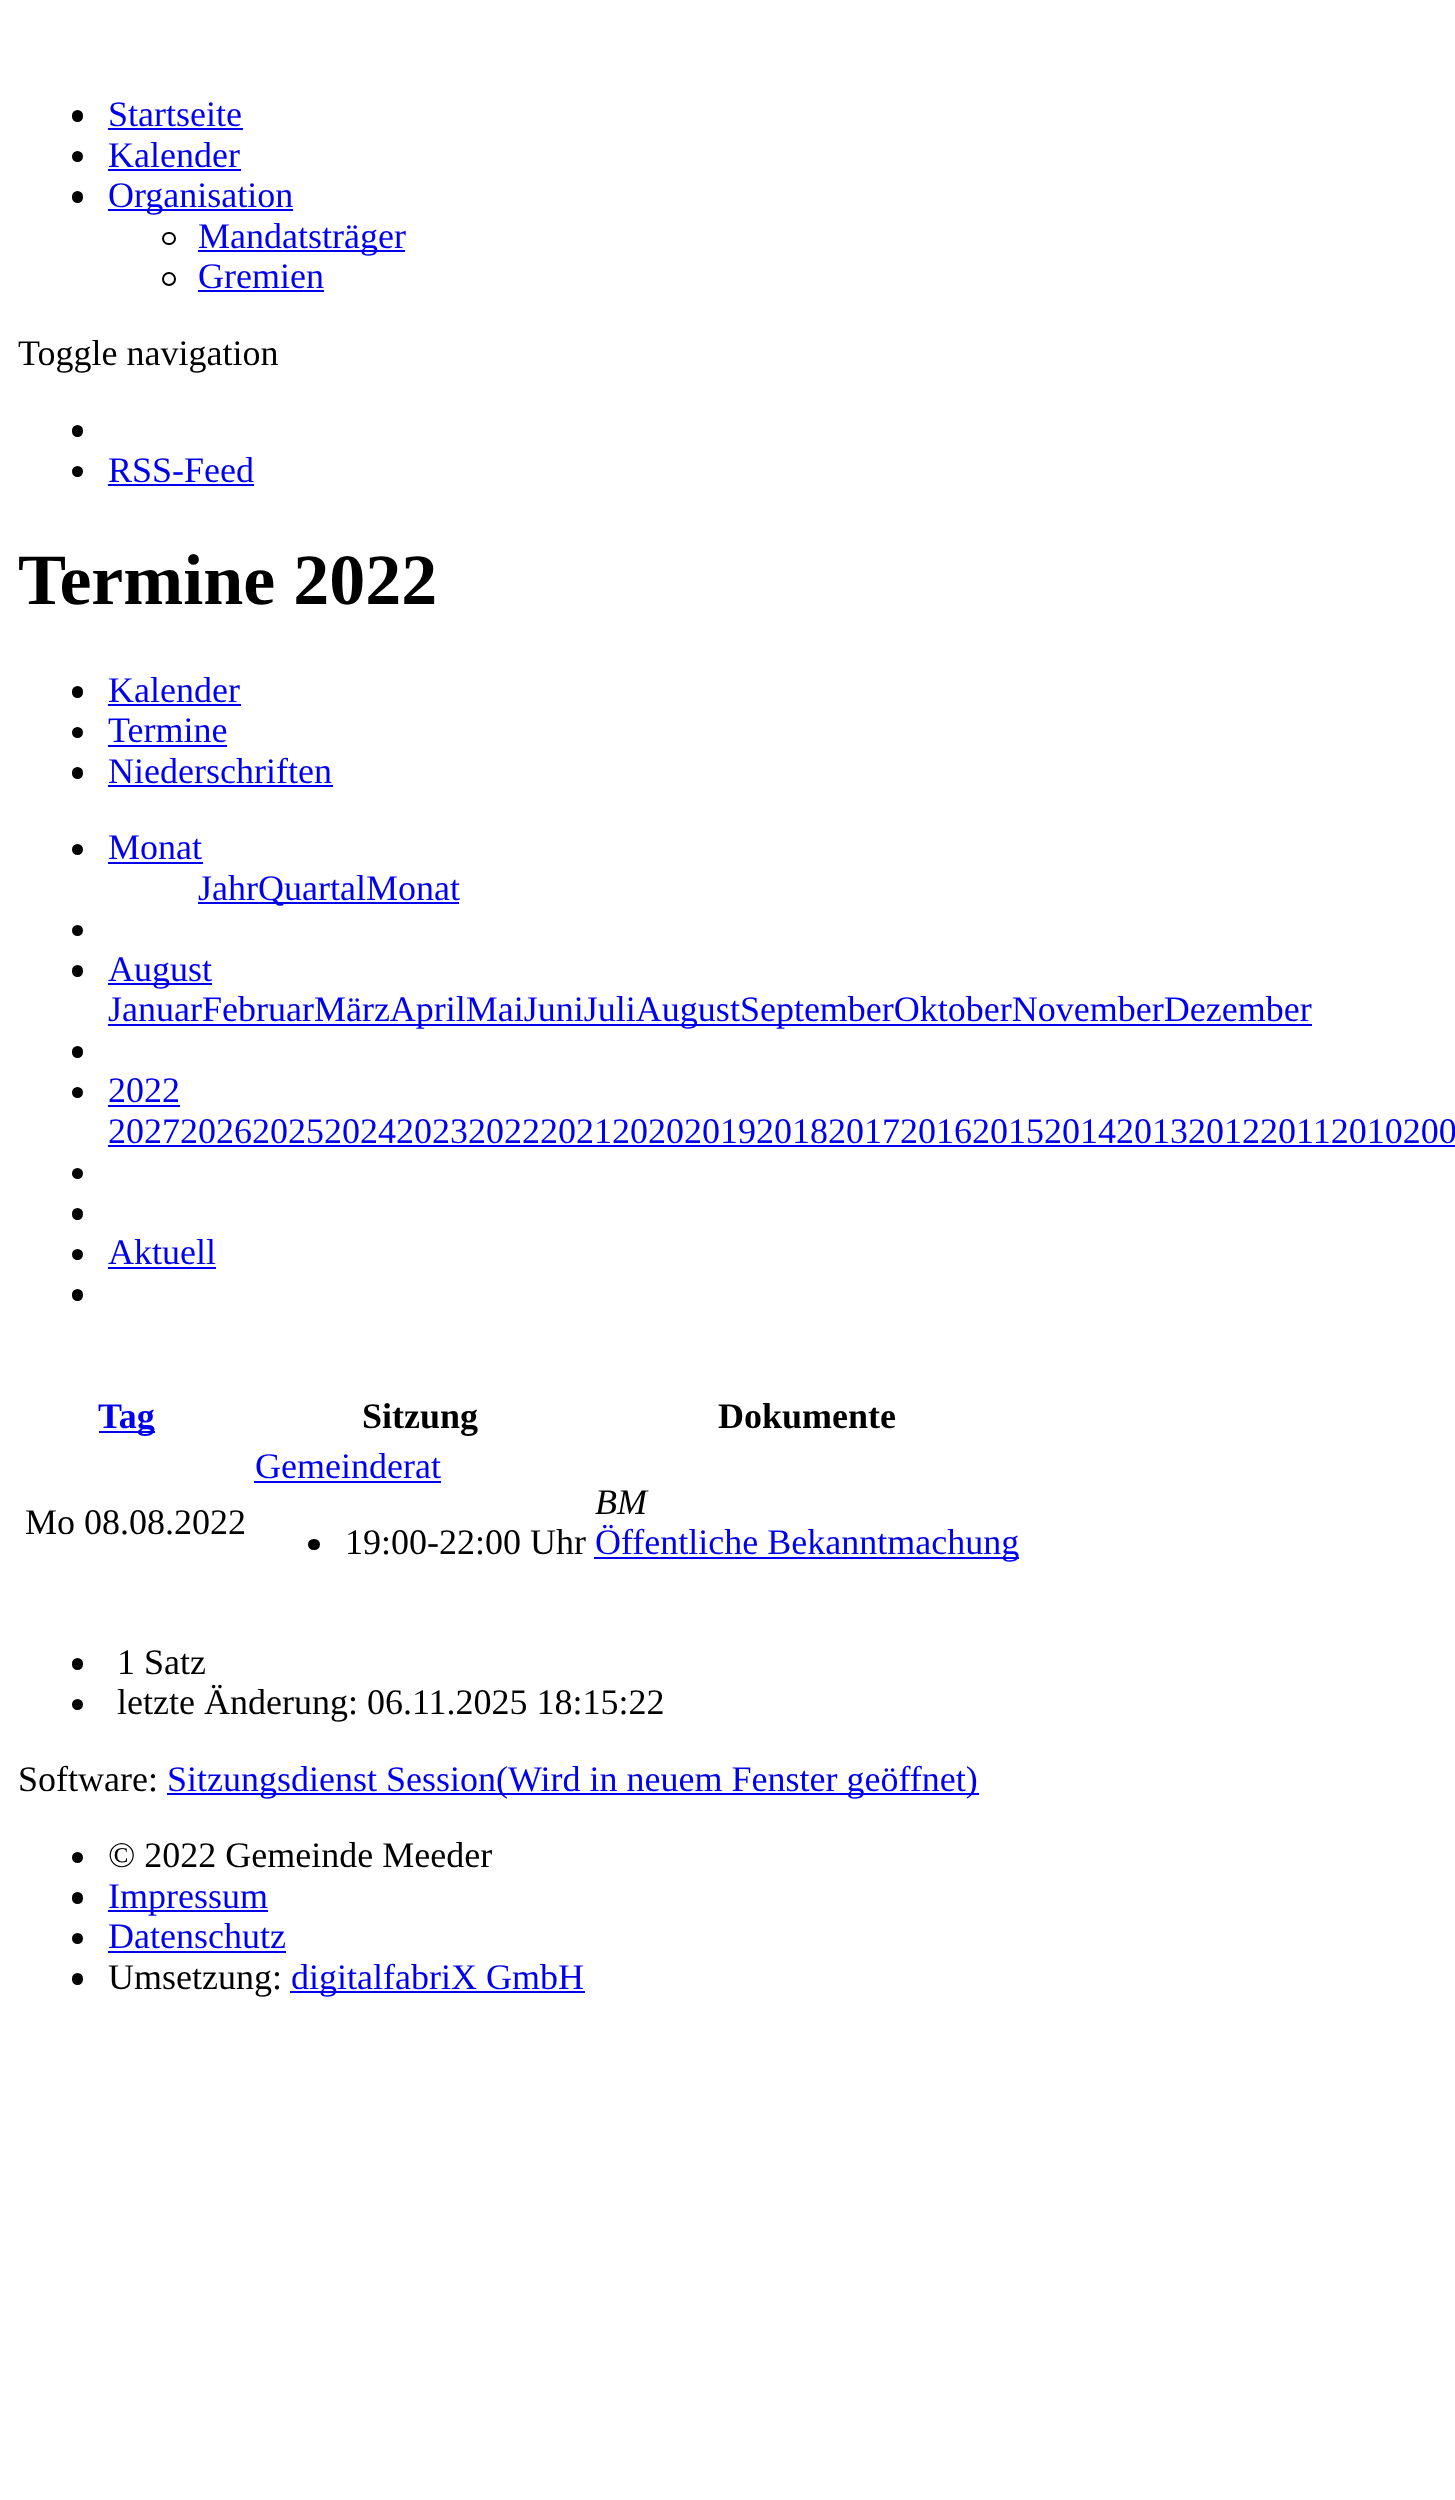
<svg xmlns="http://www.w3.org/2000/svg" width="1455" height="2500">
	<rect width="100%" height="100%" fill="#FFFFFF" />
	<rect x="72" y="110" width="11" height="12" rx="5.5" fill="#000000" />
	<text x="108" y="126" font-family="Liberation Serif" font-size="36" fill="#0000EE">Startseite</text>
	<rect x="108" y="128" width="135" height="2" fill="#0000EE" />
	<circle cx="77.5" cy="156.5" r="5.5" fill="#000000" />
	<text x="108" y="167" font-family="Liberation Serif" font-size="36" fill="#0000EE">Kalender</text>
	<rect x="108" y="169" width="133" height="2" fill="#0000EE" />
	<rect x="72" y="191" width="11" height="12" rx="5.5" fill="#000000" />
	<rect x="108" y="209" width="185" height="2" fill="#0000EE" />
	<text x="108" y="207" font-family="Liberation Serif" font-size="36" fill="#0000EE">Organisation</text>
	<rect x="163" y="233" width="12" height="11" rx="5.5" fill="none" stroke="#000000" stroke-width="2" />
	<rect x="198" y="250" width="207" height="2" fill="#0000EE" />
	<text x="198" y="248" font-family="Liberation Serif" font-size="36" fill="#0000EE">Mandatsträger</text>
	<circle cx="169" cy="279" r="6" fill="none" stroke="#000000" stroke-width="2" />
	<text x="198" y="288" font-family="Liberation Serif" font-size="36" fill="#0000EE">Gremien</text>
	<rect x="198" y="290" width="126" height="2" fill="#0000EE" />
	<text x="18" y="365" font-family="Liberation Serif" font-size="36" fill="#000000">Toggle navigation</text>
	<rect x="72" y="425" width="11" height="12" rx="5.5" fill="#000000" />
	<circle cx="77.5" cy="471.5" r="5.5" fill="#000000" />
	<text x="108" y="482" font-family="Liberation Serif" font-size="36" fill="#0000EE">RSS-Feed</text>
	<rect x="108" y="484" width="146" height="2" fill="#0000EE" />
	<text x="18" y="604" font-family="Liberation Serif" font-size="72" font-weight="700" fill="#000000">Termine 2022</text>
	<rect x="72" y="686" width="11" height="12" rx="5.5" fill="#000000" />
	<text x="108" y="702" font-family="Liberation Serif" font-size="36" fill="#0000EE">Kalender</text>
	<rect x="108" y="704" width="133" height="2" fill="#0000EE" />
	<circle cx="77.5" cy="732.5" r="5.5" fill="#000000" />
	<text x="108" y="742" font-family="Liberation Serif" font-size="36" fill="#0000EE">Termine</text>
	<rect x="108" y="745" width="119" height="2" fill="#0000EE" />
	<rect x="72" y="767" width="11" height="12" rx="5.5" fill="#000000" />
	<text x="108" y="783" font-family="Liberation Serif" font-size="36" fill="#0000EE">Niederschriften</text>
	<rect x="108" y="785" width="225" height="2" fill="#0000EE" />
	<circle cx="77.5" cy="849.5" r="5.5" fill="#000000" />
	<text x="108" y="859" font-family="Liberation Serif" font-size="36" fill="#0000EE">Monat</text>
	<rect x="108" y="862" width="95" height="2" fill="#0000EE" />
	<rect x="198" y="902" width="261" height="2" fill="#0000EE" />
	<text x="198" y="900" font-family="Liberation Serif" font-size="36" fill="#0000EE">JahrQuartalMonat</text>
	<circle cx="77.5" cy="930.5" r="5.5" fill="#000000" />
	<rect x="72" y="965" width="11" height="12" rx="5.5" fill="#000000" />
	<rect x="108" y="983" width="104" height="2" fill="#0000EE" />
	<text x="108" y="981" font-family="Liberation Serif" font-size="36" fill="#0000EE">August</text>
	<rect x="108" y="1024" width="785" height="2" fill="#0000EE" />
	<text x="108" y="1021" font-family="Liberation Serif" font-size="36" fill="#0000EE">JanuarFebruarMärzAprilMaiJuniJuliAugustSeptemberOktoberNovemberDezember</text>
	<rect x="893" y="1024" width="419" height="2" fill="#0000EE" />
	<rect x="72" y="1046" width="11" height="12" rx="5.5" fill="#000000" />
	<circle cx="77.5" cy="1092.5" r="5.5" fill="#000000" />
	<text x="108" y="1102" font-family="Liberation Serif" font-size="36" fill="#0000EE">2022</text>
	<rect x="108" y="1105" width="72" height="2" fill="#0000EE" />
	<text x="108" y="1143" font-family="Liberation Serif" font-size="36" fill="#0000EE">202720262025202420232022202120202019201820172016201520142013201220112010200</text>
	<rect x="108" y="1145" width="1347" height="2" fill="#0000EE" />
	<circle cx="77.5" cy="1173.5" r="5.5" fill="#000000" />
	<rect x="72" y="1208" width="11" height="12" rx="5.5" fill="#000000" />
	<circle cx="77.5" cy="1254.5" r="5.5" fill="#000000" />
	<text x="108" y="1264" font-family="Liberation Serif" font-size="36" fill="#0000EE">Aktuell</text>
	<rect x="108" y="1267" width="108" height="2" fill="#0000EE" />
	<rect x="72" y="1289" width="11" height="12" rx="5.5" fill="#000000" />
	<rect x="99" y="1431" width="56" height="2" fill="#0000EE" />
	<text x="98" y="1428" font-family="Liberation Serif" font-size="36" font-weight="700" fill="#0000EE">Tag</text>
	<g font-family="Liberation Serif" font-size="36" font-weight="700" fill="#000000">
		<text x="362" y="1428">Sitzung</text>
		<text x="718" y="1428">Dokumente</text>
	</g>
	<text x="25" y="1534" font-family="Liberation Serif" font-size="36" fill="#000000">Mo 08.08.2022</text>
	<text x="255" y="1478" font-family="Liberation Serif" font-size="36" fill="#0000EE">Gemeinderat</text>
	<rect x="254" y="1481" width="187" height="2" fill="#0000EE" />
	<rect x="308" y="1539" width="12" height="11" rx="5.5" fill="#000000" />
	<text x="345" y="1554" font-family="Liberation Serif" font-size="36" fill="#000000">19:00-22:00 Uhr</text>
	<text x="595" y="1514" font-family="Liberation Serif" font-size="36" font-style="italic" fill="#000000">BM</text>
	<rect x="594" y="1557" width="425" height="2" fill="#0000EE" />
	<text x="595" y="1554" font-family="Liberation Serif" font-size="36" fill="#0000EE">Öffentliche Bekanntmachung</text>
	<rect x="72" y="1658" width="11" height="12" rx="5.5" fill="#000000" />
	<text x="117" y="1674" font-family="Liberation Serif" font-size="36" fill="#000000">1 Satz</text>
	<circle cx="77.5" cy="1704.5" r="5.5" fill="#000000" />
	<g font-family="Liberation Serif" font-size="36" fill="#000000">
		<text x="117" y="1714">letzte Änderung: 06.11.2025 18:15:22</text>
		<text x="18" y="1791">Software:</text>
	</g>
	<rect x="167" y="1793" width="328" height="2" fill="#0000EE" />
	<text x="167" y="1791" font-family="Liberation Serif" font-size="36" fill="#0000EE">Sitzungsdienst Session</text>
	<rect x="495" y="1793" width="484" height="2" fill="#0000EE" />
	<text x="496" y="1791" font-family="Liberation Serif" font-size="36" fill="#0000EE">(Wird in neuem Fenster geöffnet)</text>
	<circle cx="77.5" cy="1857.5" r="5.5" fill="#000000" />
	<text x="108" y="1867" font-family="Liberation Serif" font-size="36" fill="#000000">© 2022 Gemeinde Meeder</text>
	<rect x="72" y="1892" width="11" height="12" rx="5.5" fill="#000000" />
	<rect x="108" y="1910" width="160" height="2" fill="#0000EE" />
	<text x="108" y="1908" font-family="Liberation Serif" font-size="36" fill="#0000EE">Impressum</text>
	<circle cx="77.5" cy="1938.5" r="5.5" fill="#000000" />
	<text x="108" y="1948" font-family="Liberation Serif" font-size="36" fill="#0000EE">Datenschutz</text>
	<rect x="108" y="1951" width="178" height="2" fill="#0000EE" />
	<rect x="72" y="1973" width="11" height="12" rx="5.5" fill="#000000" />
	<text x="108" y="1989" font-family="Liberation Serif" font-size="36" fill="#000000">Umsetzung:</text>
	<rect x="290" y="1991" width="295" height="2" fill="#0000EE" />
	<text x="291" y="1989" font-family="Liberation Serif" font-size="36" fill="#0000EE">digitalfabriX GmbH</text>
</svg>
